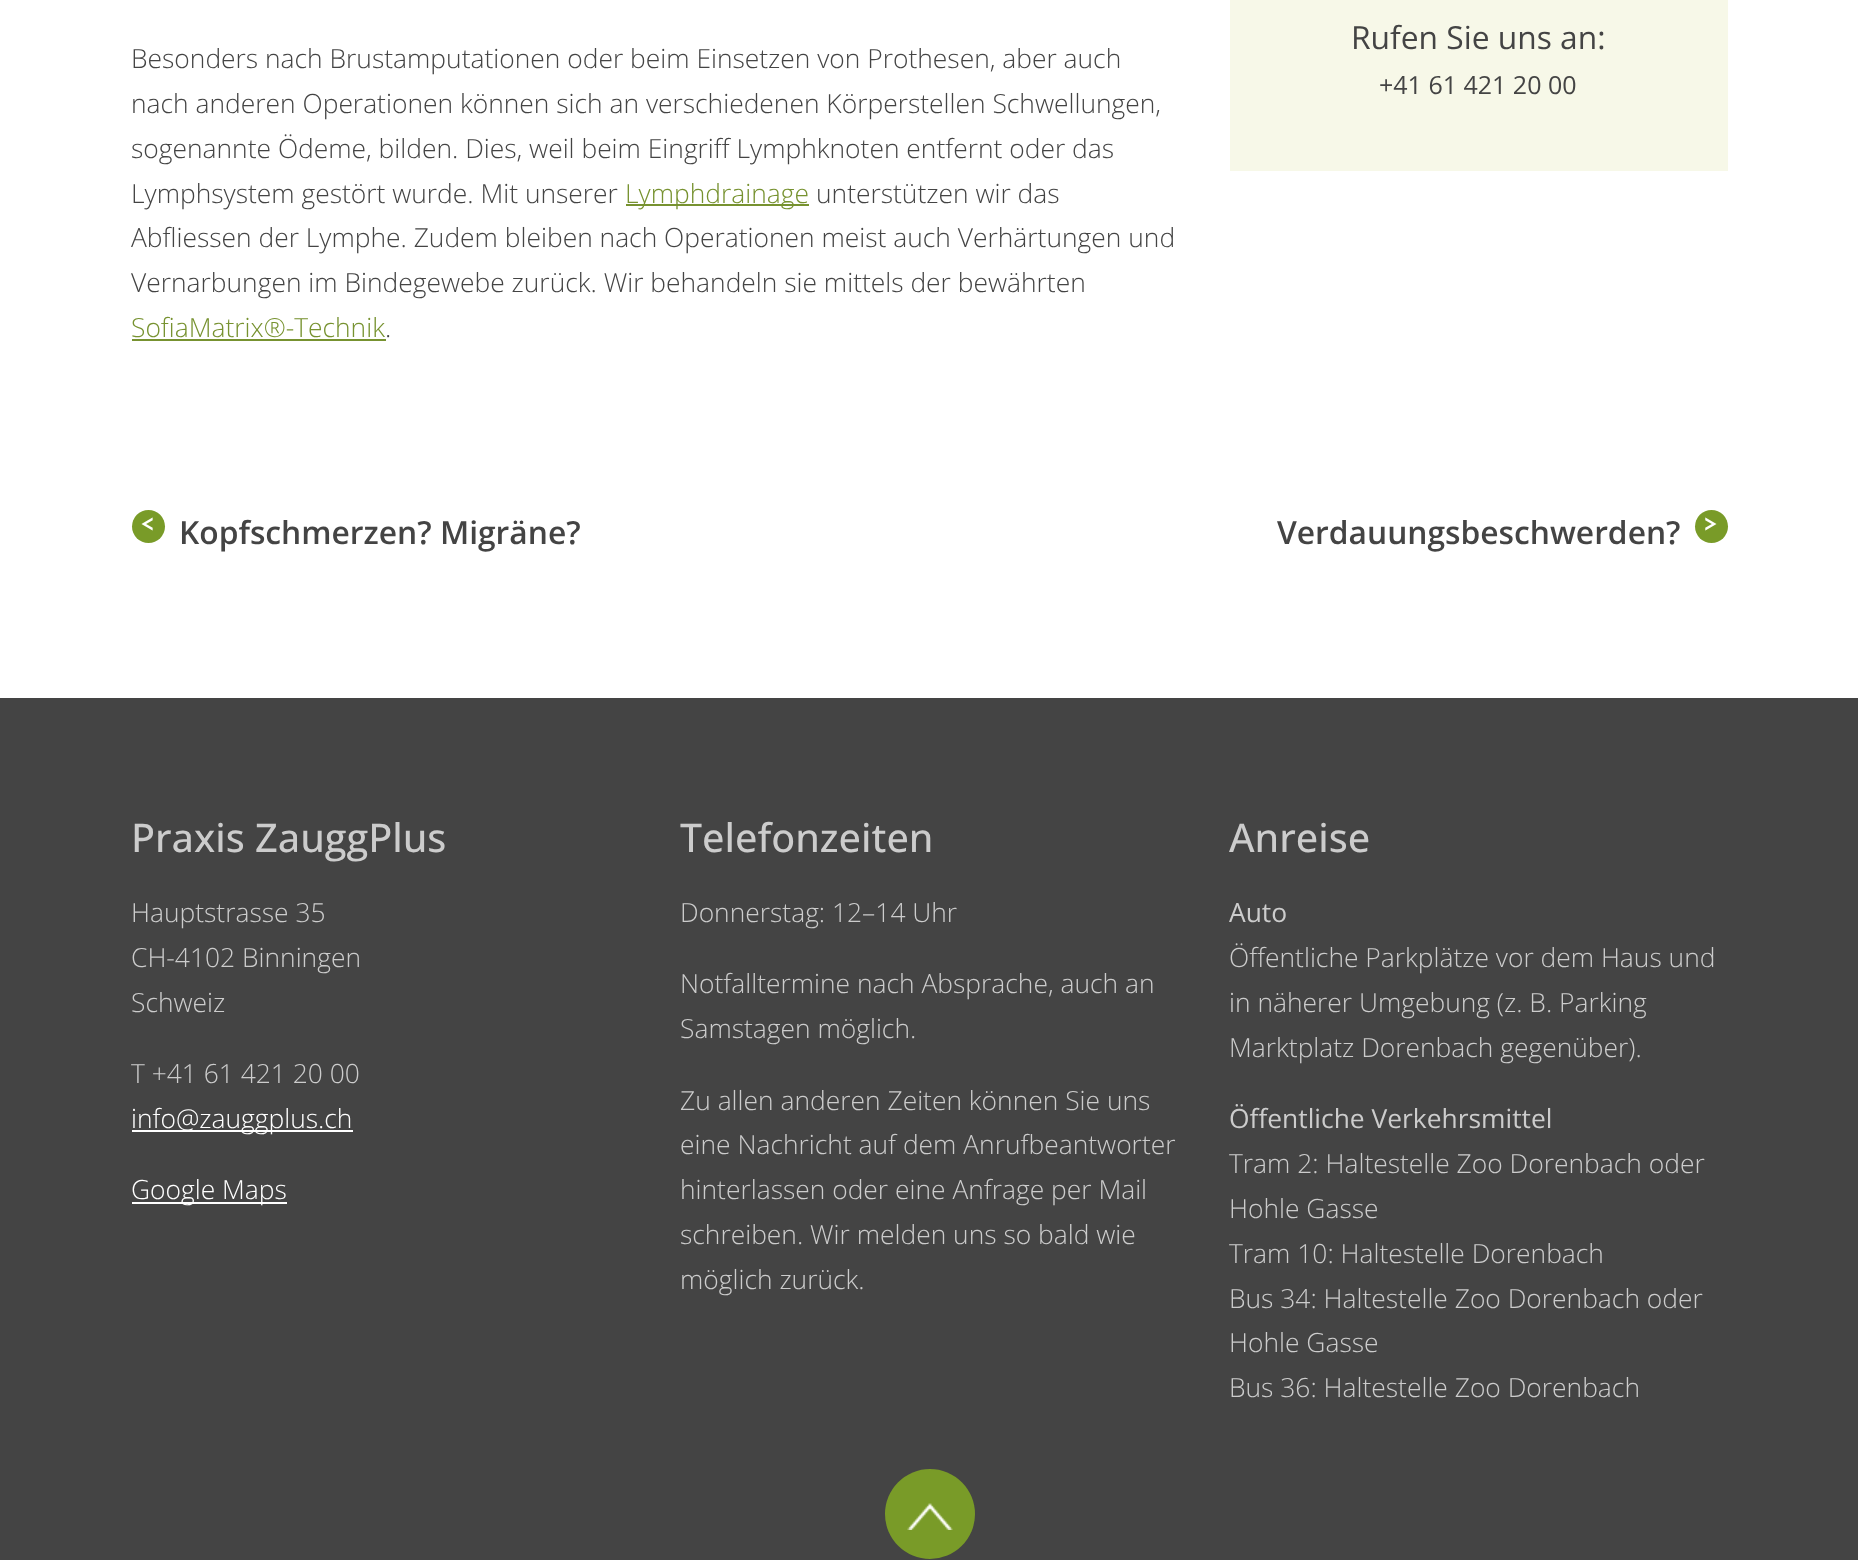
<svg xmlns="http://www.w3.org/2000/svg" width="1858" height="1560">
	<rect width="100%" height="100%" fill="#FFFFFF" />
	<g font-family="Open Sans" font-size="26.4" font-weight="300" fill="#444444">
		<text x="131" y="68">Besonders nach Brustamputationen oder beim Einsetzen von Prothesen, aber auch</text>
		<text x="131" y="113">nach anderen Operationen können sich an verschiedenen Körperstellen Schwellungen,</text>
		<text x="131" y="158">sogenannte Ödeme, bilden. Dies, weil beim Eingriff Lymphknoten entfernt oder das</text>
		<text x="131" y="203">Lymphsystem gestört wurde. Mit unserer</text>
	</g>
	<rect x="626" y="204" width="183" height="2" fill="#779230" />
	<text x="625" y="203" font-family="Open Sans" font-size="26.4" font-weight="300" fill="#779230">Lymphdrainage</text>
	<g font-family="Open Sans" font-size="26.4" font-weight="300" fill="#444444">
		<text x="816" y="203">unterstützen wir das</text>
		<text x="131" y="247">Abfliessen der Lymphe. Zudem bleiben nach Operationen meist auch Verhärtungen und</text>
		<text x="131" y="292">Vernarbungen im Bindegewebe zurück. Wir behandeln sie mittels der bewährten</text>
	</g>
	<text x="131" y="337" font-family="Open Sans" font-size="26.4" font-weight="300" fill="#779230">SofiaMatrix®-Technik</text>
	<rect x="132" y="339" width="254" height="2" fill="#779230" />
	<text x="385" y="337" font-family="Open Sans" font-size="26.4" font-weight="300" fill="#444444">.</text>
	<rect x="1230" y="0" width="498" height="171" fill="#F7F8E8" />
	<text x="1351" y="49" font-family="Open Sans" font-size="31.75" fill="#444444">Rufen Sie uns an:</text>
	<text x="1379" y="94" font-family="Open Sans" font-size="25" fill="#444444">+41 61 421 20 00</text>
	<circle cx="148.5" cy="526.5" r="16.5" fill="#799B28" />
	<text x="140" y="530" font-family="Josefin Sans" font-size="25" font-weight="100" fill="#FFFFFF">&lt;</text>
	<g font-family="Open Sans" font-size="31.75" font-weight="600" fill="#444444">
		<text x="179" y="544">Kopfschmerzen? Migräne?</text>
		<text x="1277" y="544">Verdauungsbeschwerden?</text>
	</g>
	<circle cx="1711.5" cy="526.5" r="16.5" fill="#799B28" />
	<text x="1703" y="530" font-family="Josefin Sans" font-size="25" font-weight="100" fill="#FFFFFF">&gt;</text>
	<rect x="0" y="698" width="1858" height="862" fill="#444444" />
	<text x="131" y="852" font-family="Open Sans" font-size="39.5" font-weight="500" fill="#CCCCCC">Praxis ZauggPlus</text>
	<g font-family="Open Sans" font-size="26.4" font-weight="300" fill="#CCCCCC">
		<text x="131" y="922">Hauptstrasse 35</text>
		<text x="131" y="967">CH-4102 Binningen</text>
		<text x="131" y="1012">Schweiz</text>
		<text x="131" y="1083">T +41 61 421 20 00</text>
	</g>
	<rect x="132" y="1130" width="221" height="2" fill="#FFFFFF" />
	<text x="131" y="1128" font-family="Open Sans" font-size="26.4" font-weight="300" fill="#FFFFFF">info@zauggplus.ch</text>
	<rect x="132" y="1202" width="155" height="2" fill="#FFFFFF" />
	<text x="131" y="1199" font-family="Open Sans" font-size="26.4" font-weight="300" fill="#FFFFFF">Google Maps</text>
	<text x="680" y="852" font-family="Open Sans" font-size="39.5" font-weight="500" fill="#CCCCCC">Telefonzeiten</text>
	<g font-family="Open Sans" font-size="26.4" font-weight="300" fill="#CCCCCC">
		<text x="680" y="922">Donnerstag: 12–14 Uhr</text>
		<text x="680" y="993">Notfalltermine nach Absprache, auch an</text>
		<text x="680" y="1038">Samstagen möglich.</text>
		<text x="680" y="1110">Zu allen anderen Zeiten können Sie uns</text>
		<text x="680" y="1154">eine Nachricht auf dem Anrufbeantworter</text>
		<text x="680" y="1199">hinterlassen oder eine Anfrage per Mail</text>
		<text x="680" y="1244">schreiben. Wir melden uns so bald wie</text>
		<text x="680" y="1289">möglich zurück.</text>
	</g>
	<text x="1229" y="852" font-family="Open Sans" font-size="39.5" font-weight="500" fill="#CCCCCC">Anreise</text>
	<text x="1229" y="922" font-family="Open Sans" font-size="26.4" fill="#CCCCCC">Auto</text>
	<g font-family="Open Sans" font-size="26.4" font-weight="300" fill="#CCCCCC">
		<text x="1229" y="967">Öffentliche Parkplätze vor dem Haus und</text>
		<text x="1229" y="1012">in näherer Umgebung (z. B. Parking</text>
		<text x="1229" y="1057">Marktplatz Dorenbach gegenüber).</text>
	</g>
	<text x="1229" y="1128" font-family="Open Sans" font-size="26.4" fill="#CCCCCC">Öffentliche Verkehrsmittel</text>
	<g font-family="Open Sans" font-size="26.4" font-weight="300" fill="#CCCCCC">
		<text x="1229" y="1173">Tram 2: Haltestelle Zoo Dorenbach oder</text>
		<text x="1229" y="1218">Hohle Gasse</text>
		<text x="1229" y="1263">Tram 10: Haltestelle Dorenbach</text>
		<text x="1229" y="1308">Bus 34: Haltestelle Zoo Dorenbach oder</text>
		<text x="1229" y="1352">Hohle Gasse</text>
		<text x="1229" y="1397">Bus 36: Haltestelle Zoo Dorenbach</text>
	</g>
	<circle cx="930" cy="1514" r="45" fill="#799B28" />
	<image x="907" y="1503" width="46" height="27" href="assets/img1.png" />
</svg>
